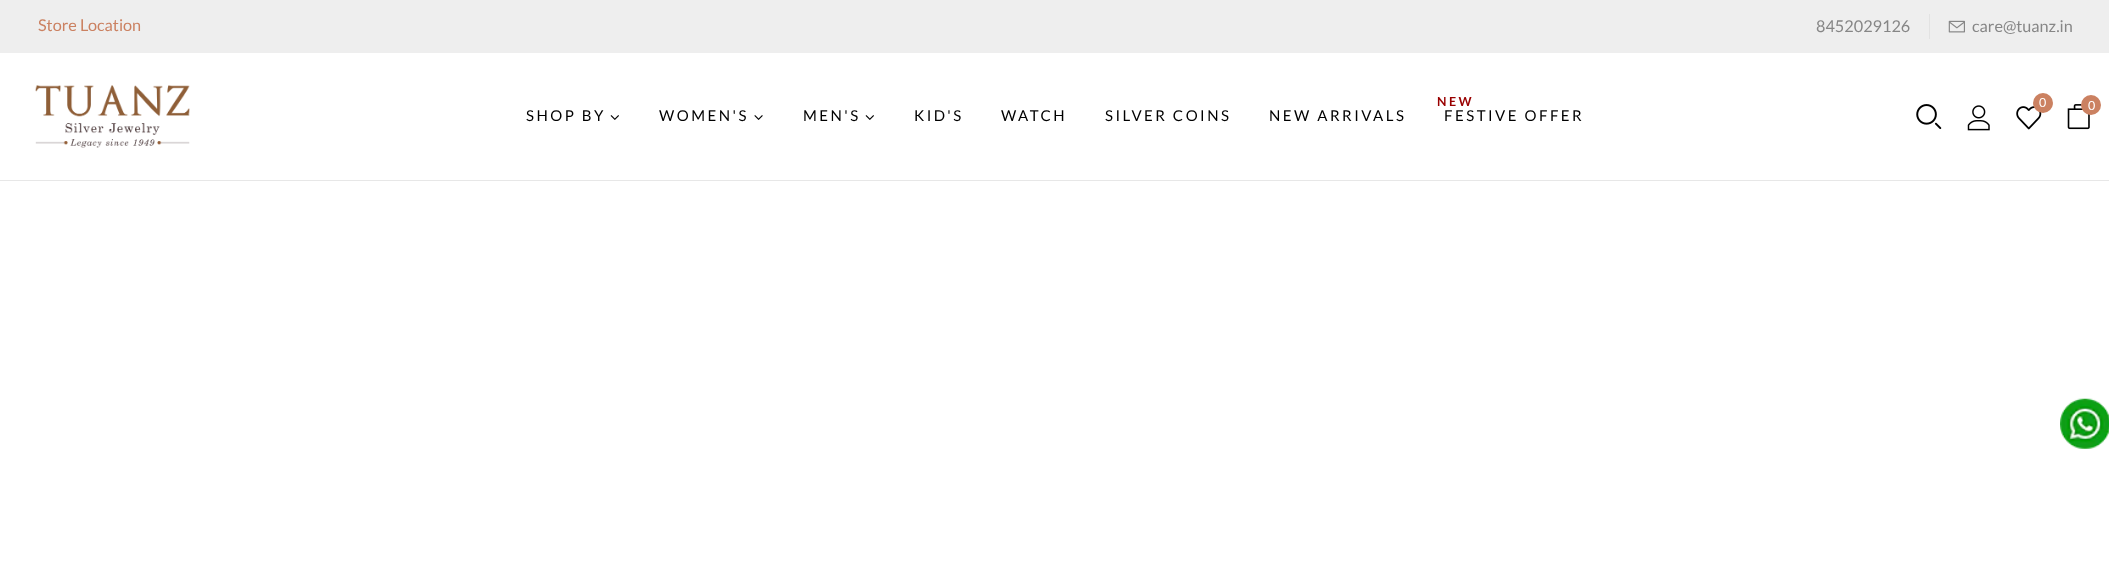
<svg xmlns="http://www.w3.org/2000/svg" width="2109" height="573">
	<rect width="100%" height="100%" fill="#FFFFFF" />
	<rect x="0" y="0" width="2109" height="53" fill="#EEEEEE" />
	<text x="38" y="31" font-family="Lato" font-size="16.25" fill="#CB8161">Store Location</text>
	<text x="1816" y="32" font-family="Lato" font-size="16.25" fill="#868686">8452029126</text>
	<rect x="1929" y="14" width="1" height="25" fill="#E2E2E2" />
	<image x="1948" y="20" width="17" height="13" href="assets/img1.png" />
	<text x="1972" y="32" font-family="Lato" font-size="16.25" fill="#868686">care@tuanz.in</text>
	<rect x="0" y="180" width="2109" height="1" fill="#E7E7E7" />
	<image x="35" y="85" width="155" height="63" href="assets/img2.png" />
	<text x="526" y="121" font-family="Lato" font-size="15" letter-spacing="2.5" fill="#000000">SHOP BY</text>
	<image x="610" y="115" width="9" height="5" href="assets/img3.png" />
	<text x="659" y="121" font-family="Lato" font-size="15" letter-spacing="2.5" fill="#000000">WOMEN'S</text>
	<image x="754" y="115" width="9" height="5" href="assets/img4.png" />
	<text x="803" y="121" font-family="Lato" font-size="15" letter-spacing="2.5" fill="#000000">MEN'S</text>
	<image x="865" y="115" width="9" height="5" href="assets/img3.png" />
	<g font-family="Lato" font-size="15" letter-spacing="2.5" fill="#000000">
		<text x="914" y="121">KID'S</text>
		<text x="1001" y="121">WATCH</text>
		<text x="1105" y="121">SILVER COINS</text>
		<text x="1269" y="121">NEW ARRIVALS</text>
	</g>
	<text x="1437" y="106" font-family="Lato" font-size="12.5" font-weight="700" letter-spacing="2.5" fill="#990000">NEW</text>
	<text x="1444" y="121" font-family="Lato" font-size="15" letter-spacing="2.5" fill="#000000">FESTIVE OFFER</text>
	<image x="1916" y="104" width="26" height="25" href="assets/img5.png" />
	<image x="1967" y="105" width="23" height="26" href="assets/img6.png" />
	<image x="2016" y="106" width="26" height="24" href="assets/img7.png" />
	<circle cx="2043" cy="103" r="10" fill="#CB8161" />
	<text x="2039" y="107" font-family="Lato" font-size="12.5" fill="#FFFFFF">0</text>
	<image x="2067" y="104" width="23" height="26" href="assets/img8.png" />
	<circle cx="2091" cy="105" r="10" fill="#CB8161" />
	<text x="2088" y="110" font-family="Lato" font-size="12.5" fill="#FFFFFF">0</text>
	<image x="2060" y="398" width="49" height="51" href="assets/img9.png" />
</svg>
